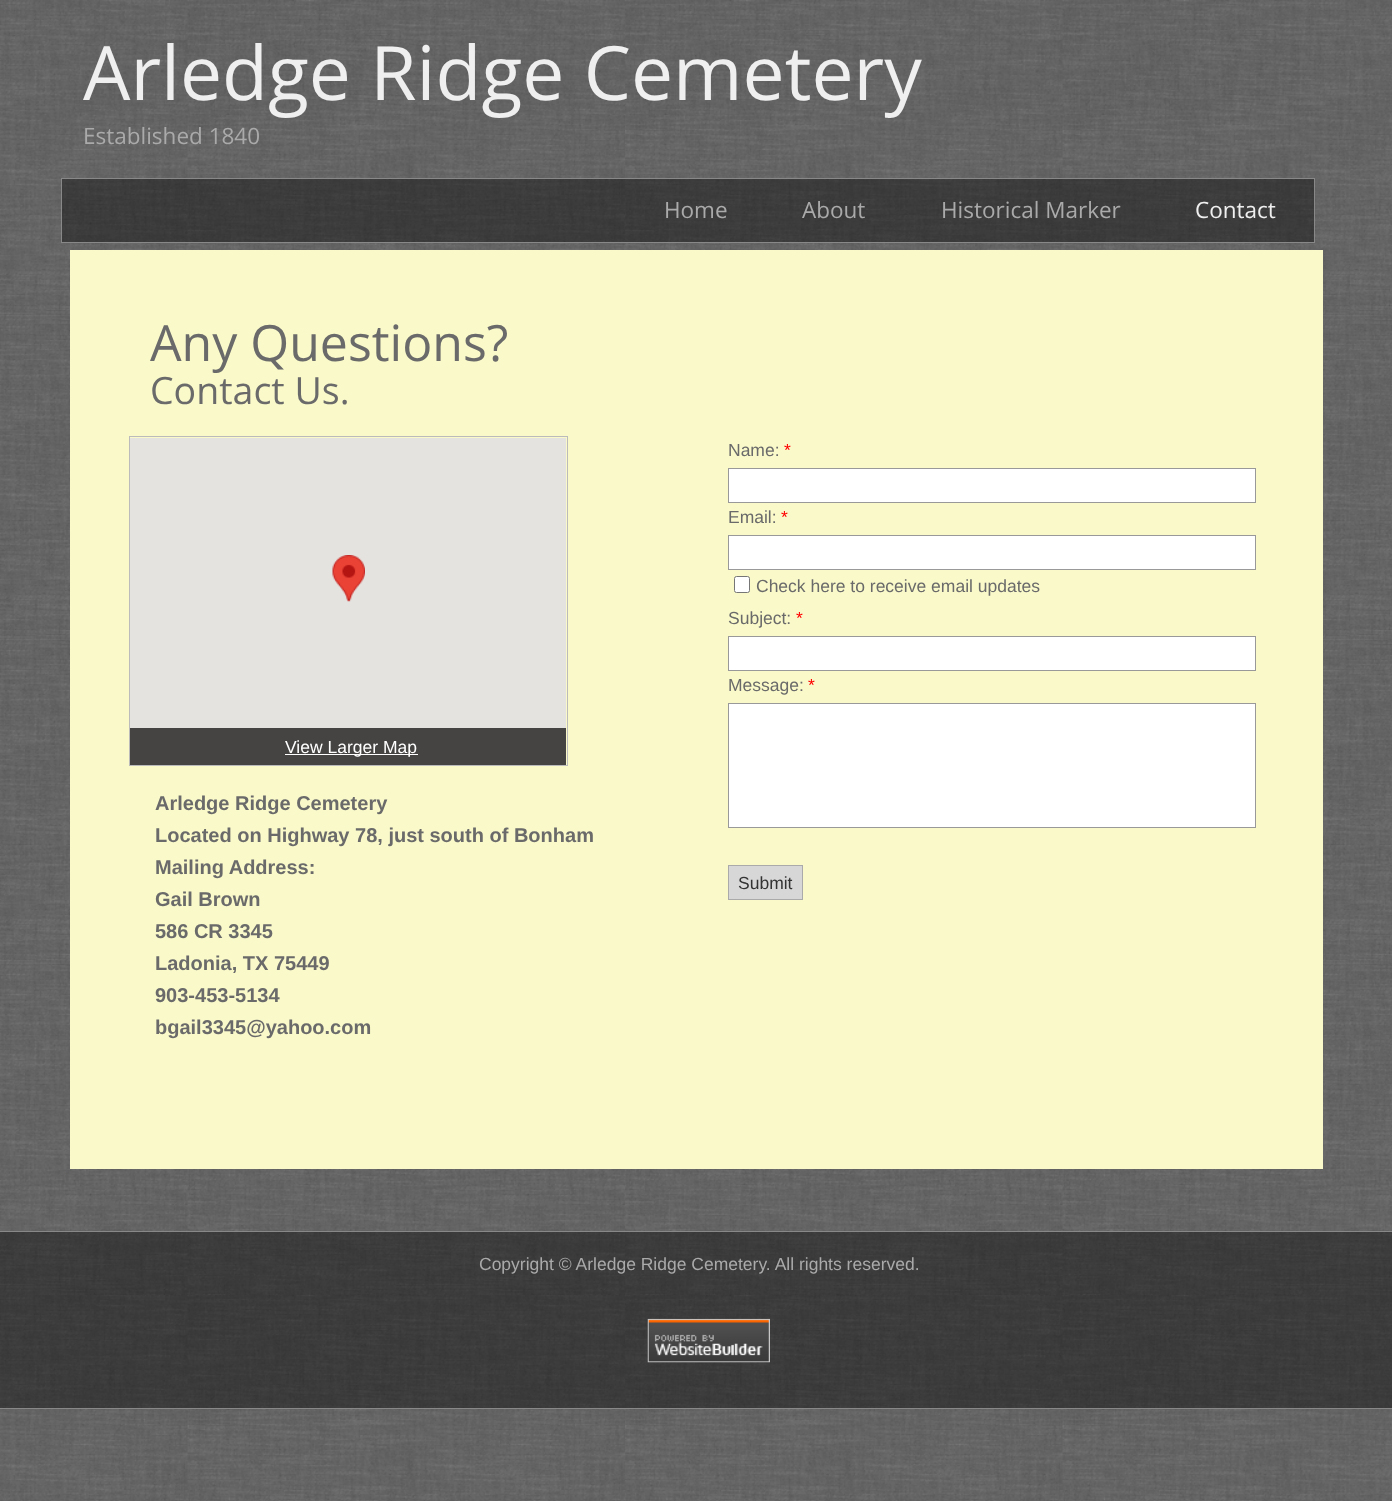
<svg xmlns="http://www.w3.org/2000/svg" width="1392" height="1501">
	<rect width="100%" height="100%" fill="#FFFFFF" />
	<image x="0" y="0" width="1392" height="1501" href="assets/img1.png" />
	<rect x="70" y="250" width="1253" height="919" fill="#F9F9CA" />
	<text x="83" y="100" font-family="Open Sans" font-size="75" fill="#EFEFEF">Arledge Ridge Cemetery</text>
	<text x="83" y="144" font-family="Open Sans" font-size="22.5" fill="#AAAAAA">Established 1840</text>
	<rect x="61.5" y="178.5" width="1253" height="64" fill="#000000" fill-opacity="0.4" stroke="#888888" />
	<g font-family="Open Sans" font-size="22.5" fill="#AAAAAA">
		<text x="664" y="218">Home</text>
		<text x="802" y="218">About</text>
		<text x="941" y="218">Historical Marker</text>
	</g>
	<text x="1195" y="218" font-family="Open Sans" font-size="22.5" fill="#EFEFEF">Contact</text>
	<text x="150" y="361" font-family="Open Sans" font-size="50" fill="#6A6A6A">Any Questions?</text>
	<text x="150" y="404" font-family="Open Sans" font-size="37.5" fill="#6A6A6A">Contact Us.</text>
	<rect x="129.5" y="436.5" width="438" height="329" fill="none" stroke="#BBBBBB" />
	<rect x="130" y="438" width="436" height="290" fill="#E5E3DF" />
	<image x="332" y="555" width="33" height="47" href="assets/img2.png" />
	<rect x="130" y="728" width="436" height="37" fill="#454443" />
	<rect x="285" y="754" width="133" height="1" fill="#FFFFFF" />
	<text x="285" y="753" font-family="Liberation Sans" font-size="17.5" fill="#FFFFFF">View Larger Map</text>
	<text x="728" y="456" font-family="Liberation Sans" font-size="17.5" fill="#6A6A6A">Name:</text>
	<text x="784" y="456" font-family="Liberation Sans" font-size="17.5" fill="#FF0000">*</text>
	<rect x="728.5" y="468.5" width="527" height="34" fill="#FFFFFF" stroke="#999999" />
	<text x="728" y="523" font-family="Liberation Sans" font-size="17.5" fill="#6A6A6A">Email:</text>
	<text x="781" y="523" font-family="Liberation Sans" font-size="17.5" fill="#FF0000">*</text>
	<rect x="728.5" y="535.5" width="527" height="34" fill="#FFFFFF" stroke="#999999" />
	<rect x="734.5" y="576.5" width="15" height="16" rx="2" fill="#FFFFFF" stroke="#767676" />
	<g font-family="Liberation Sans" font-size="17.5" fill="#6A6A6A">
		<text x="756" y="592">Check here to receive email updates</text>
		<text x="728" y="624">Subject:</text>
	</g>
	<text x="796" y="624" font-family="Liberation Sans" font-size="17.5" fill="#FF0000">*</text>
	<rect x="728.5" y="636.5" width="527" height="34" fill="#FFFFFF" stroke="#999999" />
	<text x="728" y="691" font-family="Liberation Sans" font-size="17.5" fill="#6A6A6A">Message:</text>
	<text x="808" y="691" font-family="Liberation Sans" font-size="17.5" fill="#FF0000">*</text>
	<rect x="728.5" y="703.5" width="527" height="124" fill="#FFFFFF" stroke="#999999" />
	<rect x="728.5" y="865.5" width="74" height="34" fill="#D7D7D7" stroke="#AAAAAA" />
	<text x="738" y="889" font-family="Liberation Sans" font-size="17.5" fill="#333333">Submit</text>
	<g font-family="Liberation Sans" font-size="20" font-weight="700" fill="#6A6A6A">
		<text x="155" y="810">Arledge Ridge Cemetery</text>
		<text x="155" y="842">Located on Highway 78, just south of Bonham</text>
		<text x="155" y="874">Mailing Address:</text>
		<text x="155" y="906">Gail Brown</text>
		<text x="155" y="938">586 CR 3345</text>
		<text x="155" y="970">Ladonia, TX 75449</text>
		<text x="155" y="1002">903-453-5134</text>
		<text x="155" y="1034">bgail3345@yahoo.com</text>
	</g>
	<rect x="0" y="1232" width="1392" height="176" fill="#000000" fill-opacity="0.4" />
	<rect x="0" y="1231" width="1392" height="1" fill="#888888" />
	<rect x="0" y="1408" width="1392" height="1" fill="#888888" />
	<text x="479" y="1270" font-family="Liberation Sans" font-size="17.5" fill="#AAAAAA">Copyright © Arledge Ridge Cemetery. All rights reserved.</text>
	<image x="647" y="1318" width="123" height="45" href="assets/img3.png" />
</svg>
